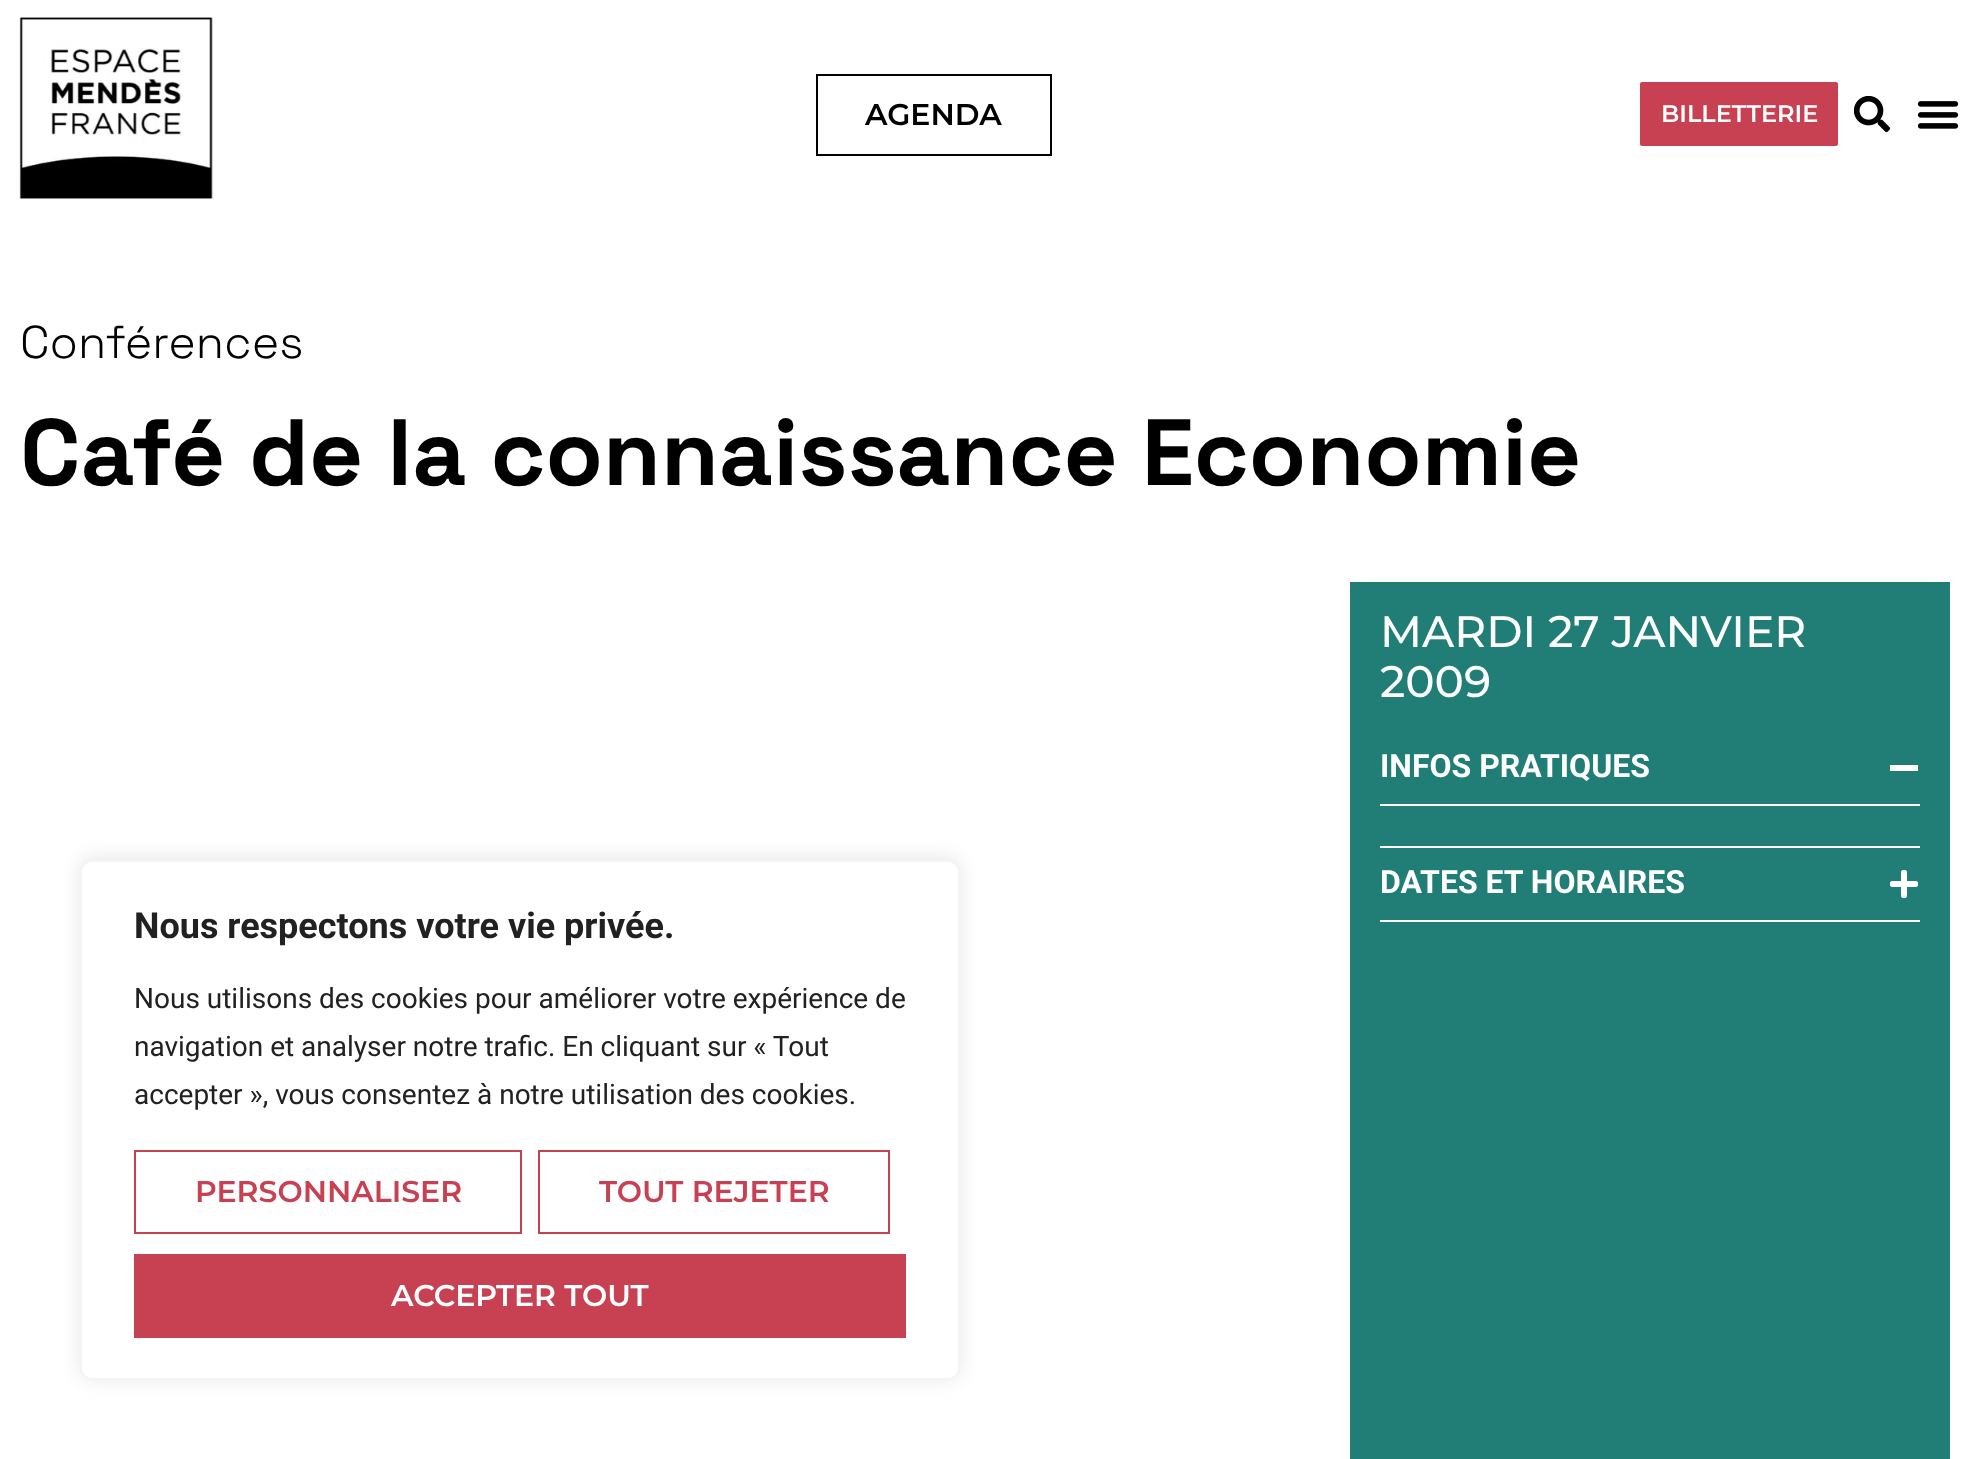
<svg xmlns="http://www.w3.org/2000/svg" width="1969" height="1459">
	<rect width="100%" height="100%" fill="#FFFFFF" />
	<image x="19" y="17" width="195" height="182" href="assets/img1.png" />
	<rect x="817" y="75" width="234" height="80" fill="none" stroke="#000000" stroke-width="2" />
	<text x="865" y="125" font-family="Montserrat" font-size="30" font-weight="600" fill="#000000">AGENDA</text>
	<rect x="1641" y="83" width="196" height="62" rx="1" fill="#C84152" stroke="#C84152" stroke-width="2" />
	<text x="1661" y="122" font-family="Montserrat" font-size="24" font-weight="600" fill="#FFFFFF">BILLETTERIE</text>
	<image x="1854" y="96" width="36" height="36" href="assets/img2.png" />
	<image x="1917" y="101" width="42" height="28" href="assets/img3.png" />
	<text x="20" y="358" font-family="Space Grotesk" font-size="46" font-weight="300" fill="#000000">Conférences</text>
	<text x="20" y="485" font-family="Space Grotesk" font-size="94" font-weight="700" fill="#000000">Café de la connaissance Economie</text>
	<rect x="1350" y="582" width="600" height="877" fill="#207E76" />
	<g font-family="Montserrat" font-size="44" font-weight="500" fill="#FFFFFF">
		<text x="1380" y="647">MARDI 27 JANVIER</text>
		<text x="1380" y="697">2009</text>
	</g>
	<rect x="1380" y="846" width="540" height="2" fill="#FFFFFF" />
	<text x="1380" y="777" font-family="Roboto" font-size="32" font-weight="700" fill="#FFFFFF">INFOS PRATIQUES</text>
	<rect x="1890" y="765" width="28" height="6" fill="#FFFFFF" />
	<rect x="1380" y="804" width="540" height="2" fill="#FFFFFF" />
	<rect x="1380" y="920" width="540" height="2" fill="#FFFFFF" />
	<text x="1380" y="893" font-family="Roboto" font-size="32" font-weight="700" fill="#FFFFFF">DATES ET HORAIRES</text>
	<image x="1890" y="870" width="28" height="28" href="assets/img4.png" />
	<rect x="80" y="858" width="880" height="520" rx="12" fill="#ACABAB" fill-opacity="0.3" filter="blur(10px)" />
	<rect x="81" y="861" width="878" height="518" rx="11" fill="#FFFFFF" stroke="#F4F4F4" stroke-width="2" />
	<text x="134" y="938" font-family="Roboto" font-size="36" font-weight="700" fill="#212121">Nous respectons votre vie privée.</text>
	<g font-family="Roboto" font-size="28" fill="#212121">
		<text x="134" y="1008">Nous utilisons des cookies pour améliorer votre expérience de</text>
		<text x="134" y="1056">navigation et analyser notre trafic. En cliquant sur « Tout</text>
		<text x="134" y="1104">accepter », vous consentez à notre utilisation des cookies.</text>
	</g>
	<rect x="135" y="1151" width="386" height="82" fill="none" stroke="#C84152" stroke-width="2" />
	<text x="195" y="1202" font-family="Montserrat" font-size="30" font-weight="600" fill="#C84152">PERSONNALISER</text>
	<rect x="539" y="1151" width="350" height="82" fill="none" stroke="#C84152" stroke-width="2" />
	<text x="599" y="1202" font-family="Montserrat" font-size="30" font-weight="600" fill="#C84152">TOUT REJETER</text>
	<rect x="134" y="1254" width="772" height="84" fill="#C84152" />
	<text x="391" y="1306" font-family="Montserrat" font-size="30" font-weight="600" fill="#FFFFFF">ACCEPTER TOUT</text>
</svg>
